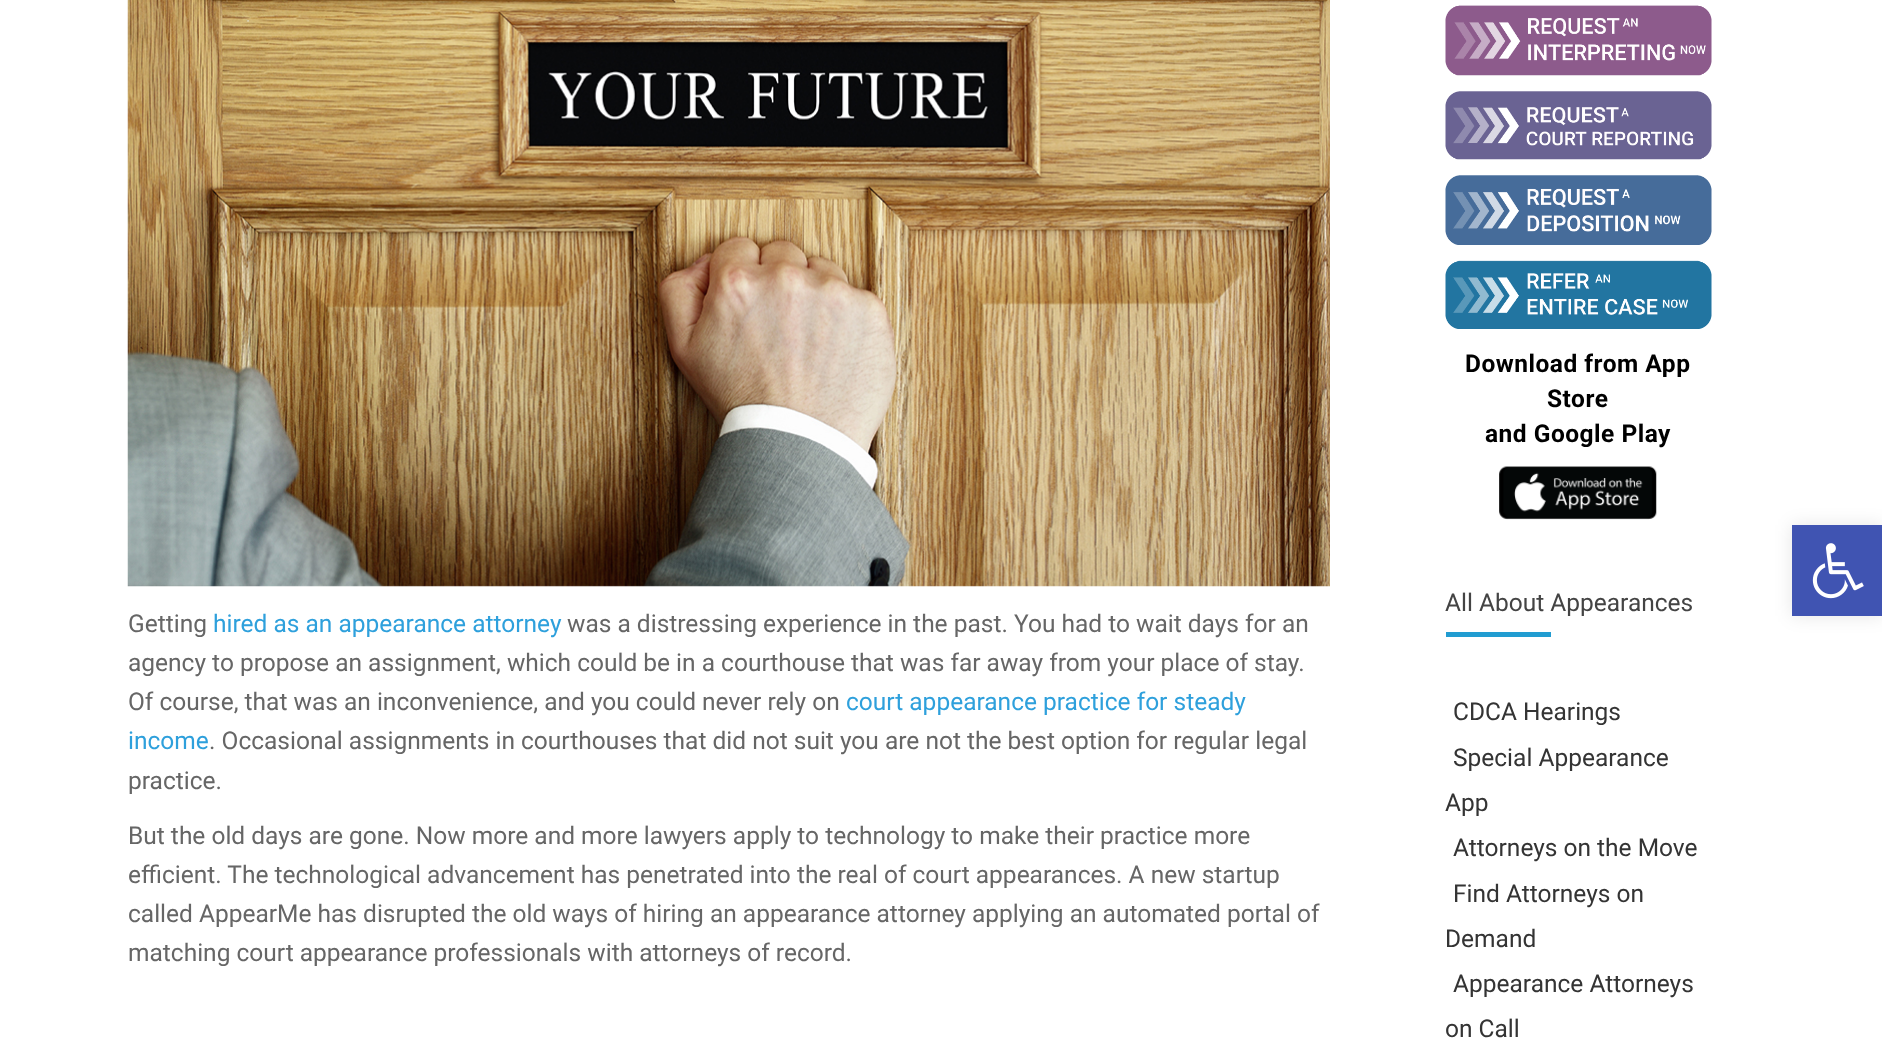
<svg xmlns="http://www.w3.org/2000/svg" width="1882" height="1048">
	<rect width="100%" height="100%" fill="#FFFFFF" />
	<image x="127" y="0" width="1203" height="587" href="assets/img1.png" />
	<text x="128" y="632" font-family="Roboto" font-size="24.5" fill="#666666">Getting</text>
	<text x="213" y="632" font-family="Roboto" font-size="24.5" fill="#2EA0DC">hired as an appearance attorney</text>
	<g font-family="Roboto" font-size="24.5" fill="#666666">
		<text x="567" y="632">was a distressing experience in the past. You had to wait days for an</text>
		<text x="128" y="671">agency to propose an assignment, which could be in a courthouse that was far away from your place of stay.</text>
		<text x="128" y="710">Of course, that was an inconvenience, and you could never rely on</text>
	</g>
	<g font-family="Roboto" font-size="24.5" fill="#2EA0DC">
		<text x="846" y="710">court appearance practice for steady</text>
		<text x="128" y="749">income</text>
	</g>
	<g font-family="Roboto" font-size="24.5" fill="#666666">
		<text x="209" y="749">. Occasional assignments in courthouses that did not suit you are not the best option for regular legal</text>
		<text x="128" y="789">practice.</text>
		<text x="128" y="844">But the old days are gone. Now more and more lawyers apply to technology to make their practice more</text>
		<text x="128" y="883">efficient. The technological advancement has penetrated into the real of court appearances. A new startup</text>
		<text x="128" y="922">called AppearMe has disrupted the old ways of hiring an appearance attorney applying an automated portal of</text>
		<text x="128" y="961">matching court appearance professionals with attorneys of record.</text>
	</g>
	<image x="1445" y="5" width="267" height="71" href="assets/img2.png" />
	<image x="1445" y="91" width="267" height="69" href="assets/img3.png" />
	<image x="1445" y="175" width="267" height="70" href="assets/img4.png" />
	<image x="1445" y="260" width="267" height="69" href="assets/img5.png" />
	<g font-family="Roboto" font-size="24.5" font-weight="700" letter-spacing="0.5" fill="#000000">
		<text x="1465" y="372">Download from App</text>
		<text x="1547" y="407">Store</text>
		<text x="1485" y="442">and Google Play</text>
	</g>
	<image x="1499" y="466" width="158" height="54" href="assets/img6.png" />
	<text x="1445" y="611" font-family="Roboto" font-size="24.5" fill="#444444">All About Appearances</text>
	<rect x="1446" y="632" width="105" height="5" fill="#219CD1" />
	<g font-family="Roboto" font-size="24.5" fill="#343434">
		<text x="1453" y="720">CDCA Hearings</text>
		<text x="1453" y="766">Special Appearance</text>
		<text x="1445" y="811">App</text>
		<text x="1453" y="856">Attorneys on the Move</text>
		<text x="1453" y="902">Find Attorneys on</text>
		<text x="1445" y="947">Demand</text>
		<text x="1453" y="992">Appearance Attorneys</text>
		<text x="1445" y="1037">on Call</text>
	</g>
	<rect x="1792" y="525" width="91" height="91" fill="#000000" fill-opacity="0.1" filter="blur(9px)" />
	<rect x="1792" y="525" width="90" height="91" fill="#4054B2" />
	<image x="1812" y="543" width="52" height="56" href="assets/img7.png" />
</svg>
